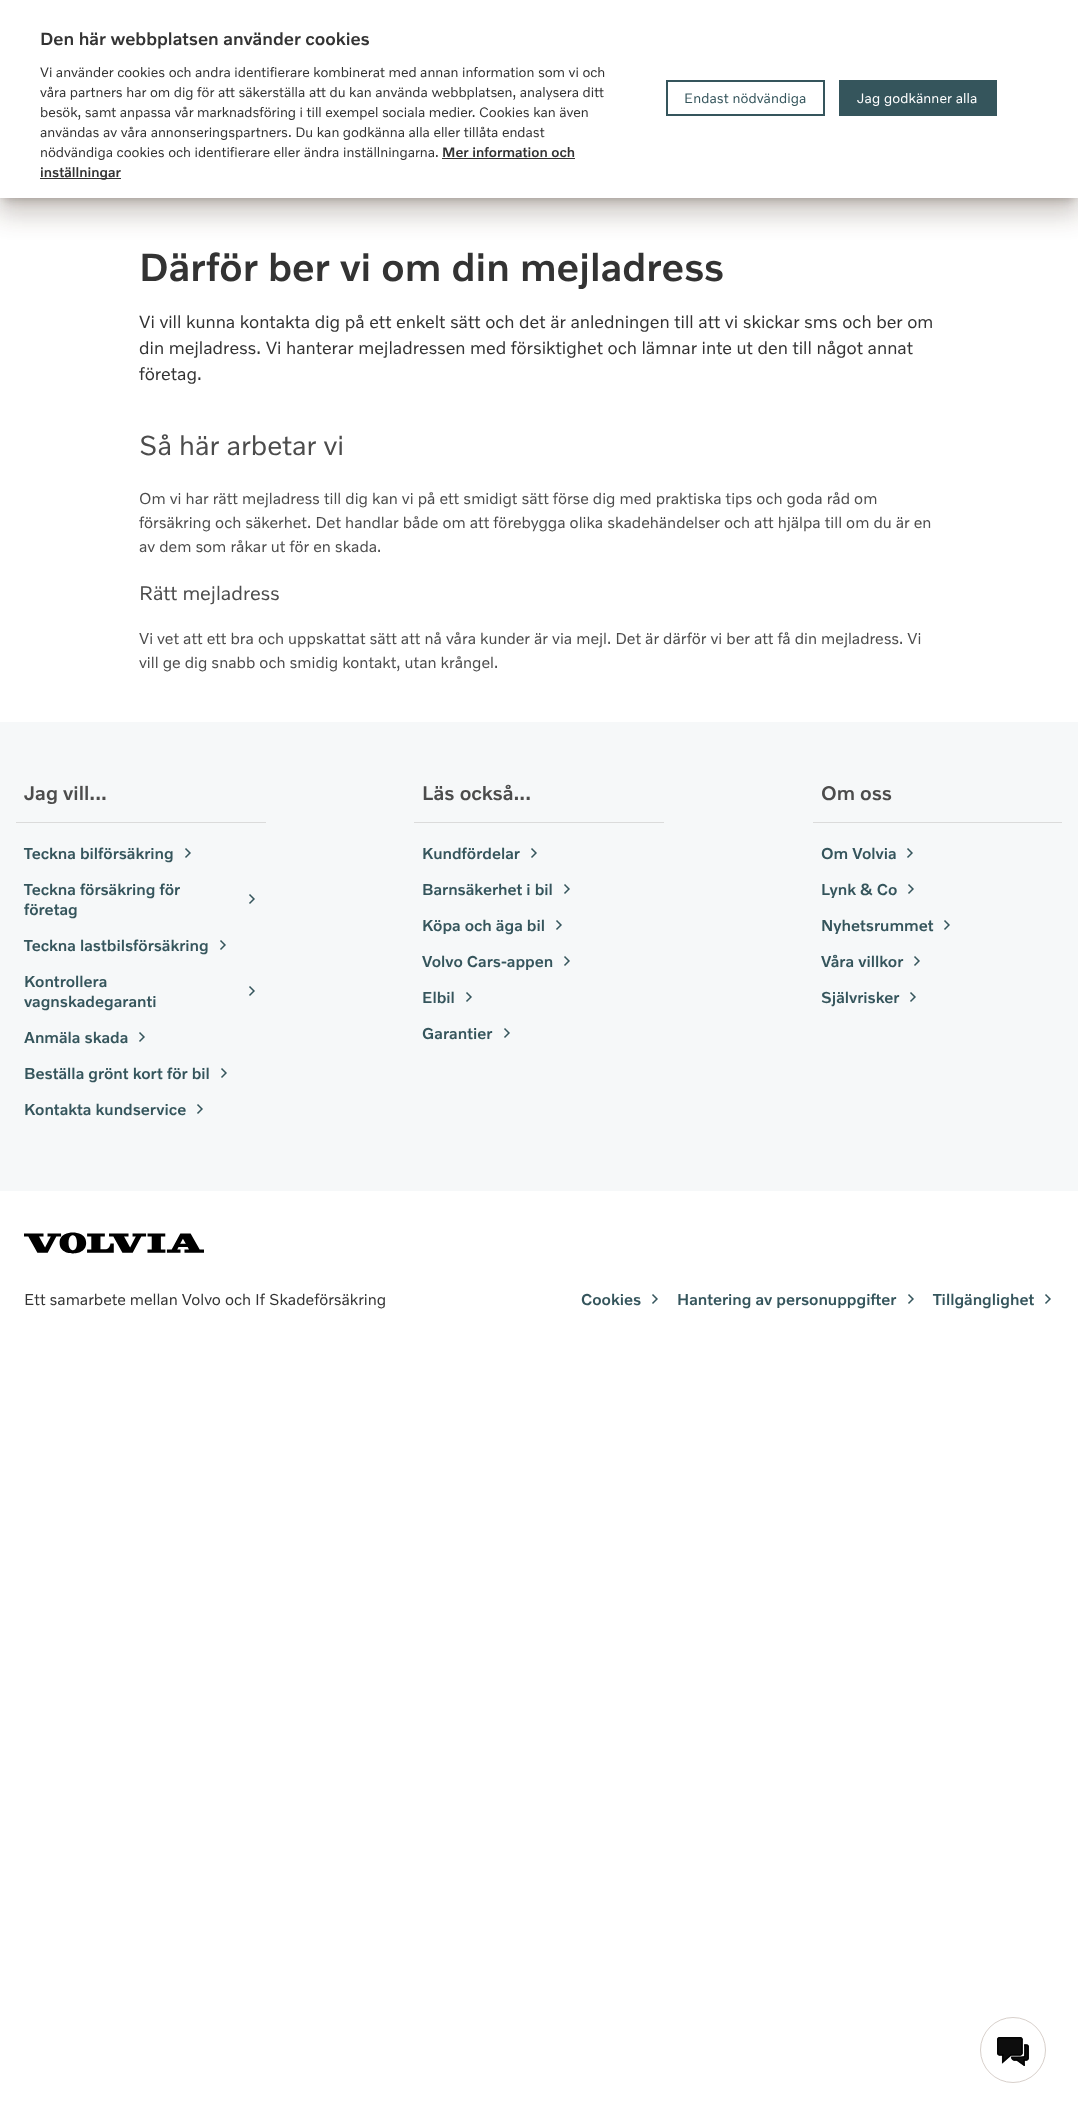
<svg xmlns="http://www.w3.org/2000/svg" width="1078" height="2115">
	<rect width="100%" height="100%" fill="#FFFFFF" />
	<rect x="5" y="13" width="1068" height="188" fill="#331E11" fill-opacity="0.2" filter="blur(5px)" />
	<rect x="-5" y="1" width="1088" height="208" fill="#331E11" fill-opacity="0.12" filter="blur(15px)" />
	<rect x="-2" y="14" width="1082" height="202" fill="#331E11" fill-opacity="0.14" filter="blur(12px)" />
	<rect x="0" y="4" width="1078" height="194" fill="#000000" fill-opacity="0.07" filter="blur(2.5px)" />
	<rect x="0" y="0" width="1078" height="198" fill="#FFFFFF" />
	<text x="40" y="45" font-family="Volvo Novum" font-size="18" font-weight="500" fill="#333333">Den här webbplatsen använder cookies</text>
	<g font-family="Volvo Novum" font-size="14" fill="#333333">
		<text x="40" y="77">Vi använder cookies och andra identifierare kombinerat med annan information som vi och</text>
		<text x="40" y="97">våra partners har om dig för att säkerställa att du kan använda webbplatsen, analysera ditt</text>
		<text x="40" y="117">besök, samt anpassa vår marknadsföring i till exempel sociala medier. Cookies kan även</text>
		<text x="40" y="137">användas av våra annonseringspartners. Du kan godkänna alla eller tillåta endast</text>
		<text x="40" y="157">nödvändiga cookies och identifierare eller ändra inställningarna.</text>
	</g>
	<text x="442" y="157" font-family="Volvo Novum" font-size="14" font-weight="500" fill="#333333">Mer information och</text>
	<rect x="442" y="158" width="133" height="1" fill="#333333" />
	<rect x="40" y="178" width="81" height="1" fill="#333333" />
	<text x="40" y="177" font-family="Volvo Novum" font-size="14" font-weight="500" fill="#333333">inställningar</text>
	<rect x="667" y="81" width="157" height="34" fill="none" stroke="#35555C" stroke-width="2" />
	<text x="684" y="103" font-family="Volvo Novum" font-size="14" letter-spacing="0.1" fill="#35555C">Endast nödvändiga</text>
	<rect x="839" y="80" width="158" height="36" fill="#35555C" />
	<text x="857" y="103" font-family="Volvo Novum" font-size="14" letter-spacing="0.1" fill="#FFFFFF">Jag godkänner alla</text>
	<text x="139" y="281" font-family="Volvo Novum" font-size="40" font-weight="500" fill="#333333">Därför ber vi om din mejladress</text>
	<g font-family="Volvo Novum" font-size="18" fill="#333333">
		<text x="139" y="328">Vi vill kunna kontakta dig på ett enkelt sätt och det är anledningen till att vi skickar sms och ber om</text>
		<text x="139" y="354">din mejladress. Vi hanterar mejladressen med försiktighet och lämnar inte ut den till något annat</text>
		<text x="139" y="380">företag.</text>
	</g>
	<text x="139" y="455" font-family="Volvo Novum" font-size="28" fill="#4C4C4C">Så här arbetar vi</text>
	<g font-family="Volvo Novum" font-size="16" fill="#4C4C4C">
		<text x="139" y="504">Om vi har rätt mejladress till dig kan vi på ett smidigt sätt förse dig med praktiska tips och goda råd om</text>
		<text x="139" y="528">försäkring och säkerhet. Det handlar både om att förebygga olika skadehändelser och att hjälpa till om du är en</text>
		<text x="139" y="552">av dem som råkar ut för en skada.</text>
	</g>
	<text x="139" y="600" font-family="Volvo Novum" font-size="20" fill="#4C4C4C">Rätt mejladress</text>
	<g font-family="Volvo Novum" font-size="16" fill="#4C4C4C">
		<text x="139" y="644">Vi vet att ett bra och uppskattat sätt att nå våra kunder är via mejl. Det är därför vi ber att få din mejladress. Vi</text>
		<text x="139" y="668">vill ge dig snabb och smidig kontakt, utan krångel.</text>
	</g>
	<rect x="0" y="722" width="1078" height="469" fill="#F6F8F9" />
	<text x="24" y="800" font-family="Volvo Novum" font-size="20" font-weight="500" fill="#4C4C4C">Jag vill...</text>
	<rect x="16" y="822" width="250" height="1" fill="#DBDBDB" />
	<text x="24" y="859" font-family="Volvo Novum" font-size="16" font-weight="500" fill="#35555C">Teckna bilförsäkring</text>
	<image x="185" y="848" width="6" height="10" href="assets/img1.png" />
	<g font-family="Volvo Novum" font-size="16" font-weight="500" fill="#35555C">
		<text x="24" y="895">Teckna försäkring för</text>
		<text x="24" y="915">företag</text>
	</g>
	<image x="249" y="894" width="6" height="10" href="assets/img1.png" />
	<text x="24" y="951" font-family="Volvo Novum" font-size="16" font-weight="500" fill="#35555C">Teckna lastbilsförsäkring</text>
	<image x="220" y="940" width="6" height="10" href="assets/img1.png" />
	<g font-family="Volvo Novum" font-size="16" font-weight="500" fill="#35555C">
		<text x="24" y="987">Kontrollera</text>
		<text x="24" y="1007">vagnskadegaranti</text>
	</g>
	<image x="249" y="986" width="6" height="10" href="assets/img1.png" />
	<text x="24" y="1043" font-family="Volvo Novum" font-size="16" font-weight="500" fill="#35555C">Anmäla skada</text>
	<image x="139" y="1032" width="6" height="10" href="assets/img1.png" />
	<text x="24" y="1079" font-family="Volvo Novum" font-size="16" font-weight="500" fill="#35555C">Beställa grönt kort för bil</text>
	<image x="221" y="1068" width="6" height="10" href="assets/img1.png" />
	<text x="24" y="1115" font-family="Volvo Novum" font-size="16" font-weight="500" fill="#35555C">Kontakta kundservice</text>
	<image x="197" y="1104" width="6" height="10" href="assets/img1.png" />
	<text x="422" y="800" font-family="Volvo Novum" font-size="20" font-weight="500" fill="#4C4C4C">Läs också...</text>
	<rect x="414" y="822" width="250" height="1" fill="#DBDBDB" />
	<text x="422" y="859" font-family="Volvo Novum" font-size="16" font-weight="500" fill="#35555C">Kundfördelar</text>
	<image x="531" y="848" width="6" height="10" href="assets/img1.png" />
	<text x="422" y="895" font-family="Volvo Novum" font-size="16" font-weight="500" fill="#35555C">Barnsäkerhet i bil</text>
	<image x="564" y="884" width="6" height="10" href="assets/img1.png" />
	<text x="422" y="931" font-family="Volvo Novum" font-size="16" font-weight="500" fill="#35555C">Köpa och äga bil</text>
	<image x="556" y="920" width="6" height="10" href="assets/img1.png" />
	<text x="422" y="967" font-family="Volvo Novum" font-size="16" font-weight="500" fill="#35555C">Volvo Cars-appen</text>
	<image x="564" y="956" width="6" height="10" href="assets/img1.png" />
	<text x="422" y="1003" font-family="Volvo Novum" font-size="16" font-weight="500" fill="#35555C">Elbil</text>
	<image x="466" y="992" width="6" height="10" href="assets/img1.png" />
	<text x="422" y="1039" font-family="Volvo Novum" font-size="16" font-weight="500" fill="#35555C">Garantier</text>
	<image x="504" y="1028" width="6" height="10" href="assets/img1.png" />
	<text x="821" y="800" font-family="Volvo Novum" font-size="20" font-weight="500" fill="#4C4C4C">Om oss</text>
	<rect x="813" y="822" width="249" height="1" fill="#DBDBDB" />
	<text x="821" y="859" font-family="Volvo Novum" font-size="16" font-weight="500" fill="#35555C">Om Volvia</text>
	<image x="907" y="848" width="6" height="10" href="assets/img1.png" />
	<text x="821" y="895" font-family="Volvo Novum" font-size="16" font-weight="500" fill="#35555C">Lynk &amp; Co</text>
	<image x="908" y="884" width="6" height="10" href="assets/img1.png" />
	<text x="821" y="931" font-family="Volvo Novum" font-size="16" font-weight="500" fill="#35555C">Nyhetsrummet</text>
	<image x="944" y="920" width="6" height="10" href="assets/img1.png" />
	<text x="821" y="967" font-family="Volvo Novum" font-size="16" font-weight="500" fill="#35555C">Våra villkor</text>
	<image x="914" y="956" width="6" height="10" href="assets/img1.png" />
	<text x="821" y="1003" font-family="Volvo Novum" font-size="16" font-weight="500" fill="#35555C">Självrisker</text>
	<image x="910" y="992" width="6" height="10" href="assets/img1.png" />
	<image x="24" y="1232" width="180" height="22" href="assets/img2.png" />
	<text x="24" y="1305" font-family="Volvo Novum" font-size="16" fill="#333333">Ett samarbete mellan Volvo och If Skadeförsäkring</text>
	<text x="581" y="1305" font-family="Volvo Novum" font-size="16" font-weight="500" fill="#35555C">Cookies</text>
	<image x="652" y="1294" width="6" height="10" href="assets/img3.png" />
	<text x="677" y="1305" font-family="Volvo Novum" font-size="16" font-weight="500" fill="#35555C">Hantering av personuppgifter</text>
	<image x="908" y="1294" width="6" height="10" href="assets/img3.png" />
	<text x="933" y="1305" font-family="Volvo Novum" font-size="16" font-weight="500" fill="#35555C">Tillgänglighet</text>
	<image x="1045" y="1294" width="6" height="10" href="assets/img3.png" />
	<circle cx="1013" cy="2050" r="32.5" fill="none" stroke="#D8D0CB" />
	<image x="997" y="2037" width="32" height="29" href="assets/img4.png" />
</svg>
